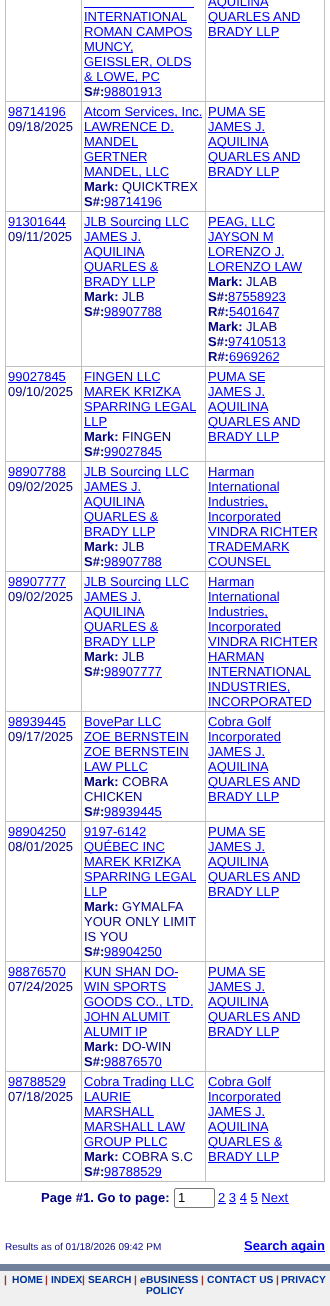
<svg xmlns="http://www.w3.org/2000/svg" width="330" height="1306">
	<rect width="100%" height="100%" fill="#FFFFFF" />
	<rect x="5" y="0" width="320" height="1182" fill="#C0C0C0" />
	<rect x="6" y="0" width="75" height="101" fill="#FFFFFF" />
	<rect x="82" y="0" width="123" height="101" fill="#FFFFFF" />
	<text x="84" y="21" font-family="Liberation Sans" font-size="13" fill="#0000EE">INTERNATIONAL</text>
	<rect x="84" y="7" width="110" height="1" fill="#0000EE" />
	<rect x="84" y="22" width="103" height="1" fill="#0000EE" />
	<text x="84" y="36" font-family="Liberation Sans" font-size="13" fill="#0000EE">ROMAN CAMPOS</text>
	<rect x="84" y="37" width="108" height="1" fill="#0000EE" />
	<rect x="84" y="52" width="49" height="1" fill="#0000EE" />
	<text x="84" y="51" font-family="Liberation Sans" font-size="13" fill="#0000EE">MUNCY,</text>
	<rect x="84" y="67" width="107" height="1" fill="#0000EE" />
	<text x="84" y="66" font-family="Liberation Sans" font-size="13" fill="#0000EE">GEISSLER, OLDS</text>
	<rect x="84" y="82" width="76" height="1" fill="#0000EE" />
	<text x="84" y="81" font-family="Liberation Sans" font-size="13" fill="#0000EE">&amp; LOWE, PC</text>
	<text x="84" y="96" font-family="Liberation Sans" font-size="13" font-weight="700" fill="#000080">S#:</text>
	<text x="104" y="96" font-family="Liberation Sans" font-size="13" fill="#0000EE">98801913</text>
	<rect x="104" y="97" width="58" height="1" fill="#0000EE" />
	<rect x="206" y="0" width="118" height="101" fill="#FFFFFF" />
	<rect x="208" y="7" width="60" height="1" fill="#0000EE" />
	<text x="208" y="6" font-family="Liberation Sans" font-size="13" fill="#0000EE">AQUILINA</text>
	<rect x="208" y="22" width="92" height="1" fill="#0000EE" />
	<g font-family="Liberation Sans" font-size="13" fill="#0000EE">
		<text x="208" y="21">QUARLES AND</text>
		<text x="208" y="36">BRADY LLP</text>
	</g>
	<rect x="208" y="37" width="71" height="1" fill="#0000EE" />
	<rect x="6" y="102" width="75" height="109" fill="#FFFFFF" />
	<text x="8" y="116" font-family="Liberation Sans" font-size="13" fill="#0000EE">98714196</text>
	<rect x="8" y="117" width="58" height="1" fill="#0000EE" />
	<text x="8" y="131" font-family="Liberation Sans" font-size="13" fill="#000080">09/18/2025</text>
	<rect x="82" y="102" width="123" height="109" fill="#FFFFFF" />
	<rect x="84" y="117" width="118" height="1" fill="#0000EE" />
	<g font-family="Liberation Sans" font-size="13" fill="#0000EE">
		<text x="84" y="116">Atcom Services, Inc.</text>
		<text x="84" y="131">LAWRENCE D.</text>
	</g>
	<rect x="84" y="132" width="90" height="1" fill="#0000EE" />
	<text x="84" y="146" font-family="Liberation Sans" font-size="13" fill="#0000EE">MANDEL</text>
	<rect x="84" y="147" width="54" height="1" fill="#0000EE" />
	<text x="84" y="161" font-family="Liberation Sans" font-size="13" fill="#0000EE">GERTNER</text>
	<rect x="84" y="162" width="63" height="1" fill="#0000EE" />
	<rect x="84" y="177" width="85" height="1" fill="#0000EE" />
	<text x="84" y="176" font-family="Liberation Sans" font-size="13" fill="#0000EE">MANDEL, LLC</text>
	<text x="84" y="191" font-family="Liberation Sans" font-size="13" font-weight="700" fill="#000080">Mark:</text>
	<text x="122" y="191" font-family="Liberation Sans" font-size="13" fill="#000080">QUICKTREX</text>
	<text x="84" y="206" font-family="Liberation Sans" font-size="13" font-weight="700" fill="#000080">S#:</text>
	<text x="104" y="206" font-family="Liberation Sans" font-size="13" fill="#0000EE">98714196</text>
	<rect x="104" y="207" width="58" height="1" fill="#0000EE" />
	<rect x="206" y="102" width="118" height="109" fill="#FFFFFF" />
	<text x="208" y="116" font-family="Liberation Sans" font-size="13" fill="#0000EE">PUMA SE</text>
	<rect x="208" y="117" width="57" height="1" fill="#0000EE" />
	<text x="208" y="131" font-family="Liberation Sans" font-size="13" fill="#0000EE">JAMES J.</text>
	<rect x="208" y="132" width="57" height="1" fill="#0000EE" />
	<rect x="208" y="147" width="60" height="1" fill="#0000EE" />
	<text x="208" y="146" font-family="Liberation Sans" font-size="13" fill="#0000EE">AQUILINA</text>
	<rect x="208" y="162" width="92" height="1" fill="#0000EE" />
	<g font-family="Liberation Sans" font-size="13" fill="#0000EE">
		<text x="208" y="161">QUARLES AND</text>
		<text x="208" y="176">BRADY LLP</text>
	</g>
	<rect x="208" y="177" width="71" height="1" fill="#0000EE" />
	<rect x="6" y="212" width="75" height="154" fill="#FFFFFF" />
	<text x="8" y="226" font-family="Liberation Sans" font-size="13" fill="#0000EE">91301644</text>
	<rect x="8" y="227" width="58" height="1" fill="#0000EE" />
	<text x="8" y="241" font-family="Liberation Sans" font-size="13" fill="#000080">09/11/2025</text>
	<rect x="82" y="212" width="123" height="154" fill="#FFFFFF" />
	<rect x="84" y="227" width="105" height="1" fill="#0000EE" />
	<g font-family="Liberation Sans" font-size="13" fill="#0000EE">
		<text x="84" y="226">JLB Sourcing LLC</text>
		<text x="84" y="241">JAMES J.</text>
	</g>
	<rect x="84" y="242" width="57" height="1" fill="#0000EE" />
	<rect x="84" y="257" width="60" height="1" fill="#0000EE" />
	<text x="84" y="256" font-family="Liberation Sans" font-size="13" fill="#0000EE">AQUILINA</text>
	<rect x="84" y="272" width="74" height="1" fill="#0000EE" />
	<g font-family="Liberation Sans" font-size="13" fill="#0000EE">
		<text x="84" y="271">QUARLES &amp;</text>
		<text x="84" y="286">BRADY LLP</text>
	</g>
	<rect x="84" y="287" width="71" height="1" fill="#0000EE" />
	<text x="84" y="301" font-family="Liberation Sans" font-size="13" font-weight="700" fill="#000080">Mark:</text>
	<text x="122" y="301" font-family="Liberation Sans" font-size="13" fill="#000080">JLB</text>
	<text x="84" y="316" font-family="Liberation Sans" font-size="13" font-weight="700" fill="#000080">S#:</text>
	<text x="104" y="316" font-family="Liberation Sans" font-size="13" fill="#0000EE">98907788</text>
	<rect x="104" y="317" width="58" height="1" fill="#0000EE" />
	<rect x="206" y="212" width="118" height="154" fill="#FFFFFF" />
	<rect x="208" y="227" width="67" height="1" fill="#0000EE" />
	<g font-family="Liberation Sans" font-size="13" fill="#0000EE">
		<text x="208" y="226">PEAG, LLC</text>
		<text x="208" y="241">JAYSON M</text>
	</g>
	<rect x="208" y="242" width="65" height="1" fill="#0000EE" />
	<text x="208" y="256" font-family="Liberation Sans" font-size="13" fill="#0000EE">LORENZO J.</text>
	<rect x="208" y="257" width="76" height="1" fill="#0000EE" />
	<text x="208" y="271" font-family="Liberation Sans" font-size="13" fill="#0000EE">LORENZO LAW</text>
	<rect x="208" y="272" width="94" height="1" fill="#0000EE" />
	<text x="208" y="286" font-family="Liberation Sans" font-size="13" font-weight="700" fill="#000080">Mark:</text>
	<text x="246" y="286" font-family="Liberation Sans" font-size="13" fill="#000080">JLAB</text>
	<text x="208" y="301" font-family="Liberation Sans" font-size="13" font-weight="700" fill="#000080">S#:</text>
	<text x="228" y="301" font-family="Liberation Sans" font-size="13" fill="#0000EE">87558923</text>
	<rect x="228" y="302" width="58" height="1" fill="#0000EE" />
	<text x="208" y="316" font-family="Liberation Sans" font-size="13" font-weight="700" fill="#000080">R#:</text>
	<text x="229" y="316" font-family="Liberation Sans" font-size="13" fill="#0000EE">5401647</text>
	<rect x="229" y="317" width="50" height="1" fill="#0000EE" />
	<text x="208" y="331" font-family="Liberation Sans" font-size="13" font-weight="700" fill="#000080">Mark:</text>
	<text x="246" y="331" font-family="Liberation Sans" font-size="13" fill="#000080">JLAB</text>
	<text x="208" y="346" font-family="Liberation Sans" font-size="13" font-weight="700" fill="#000080">S#:</text>
	<text x="228" y="346" font-family="Liberation Sans" font-size="13" fill="#0000EE">97410513</text>
	<rect x="228" y="347" width="58" height="1" fill="#0000EE" />
	<text x="208" y="361" font-family="Liberation Sans" font-size="13" font-weight="700" fill="#000080">R#:</text>
	<text x="229" y="361" font-family="Liberation Sans" font-size="13" fill="#0000EE">6969262</text>
	<rect x="229" y="362" width="50" height="1" fill="#0000EE" />
	<rect x="6" y="367" width="75" height="94" fill="#FFFFFF" />
	<text x="8" y="381" font-family="Liberation Sans" font-size="13" fill="#0000EE">99027845</text>
	<rect x="8" y="382" width="58" height="1" fill="#0000EE" />
	<text x="8" y="396" font-family="Liberation Sans" font-size="13" fill="#000080">09/10/2025</text>
	<rect x="82" y="367" width="123" height="94" fill="#FFFFFF" />
	<text x="84" y="381" font-family="Liberation Sans" font-size="13" fill="#0000EE">FINGEN LLC</text>
	<rect x="84" y="382" width="76" height="1" fill="#0000EE" />
	<text x="84" y="396" font-family="Liberation Sans" font-size="13" fill="#0000EE">MAREK KRIZKA</text>
	<rect x="84" y="397" width="97" height="1" fill="#0000EE" />
	<text x="84" y="411" font-family="Liberation Sans" font-size="13" fill="#0000EE">SPARRING LEGAL</text>
	<rect x="84" y="412" width="112" height="1" fill="#0000EE" />
	<text x="84" y="426" font-family="Liberation Sans" font-size="13" fill="#0000EE">LLP</text>
	<rect x="84" y="427" width="23" height="1" fill="#0000EE" />
	<text x="84" y="441" font-family="Liberation Sans" font-size="13" font-weight="700" fill="#000080">Mark:</text>
	<text x="122" y="441" font-family="Liberation Sans" font-size="13" fill="#000080">FINGEN</text>
	<text x="84" y="456" font-family="Liberation Sans" font-size="13" font-weight="700" fill="#000080">S#:</text>
	<text x="104" y="456" font-family="Liberation Sans" font-size="13" fill="#0000EE">99027845</text>
	<rect x="104" y="457" width="58" height="1" fill="#0000EE" />
	<rect x="206" y="367" width="118" height="94" fill="#FFFFFF" />
	<text x="208" y="381" font-family="Liberation Sans" font-size="13" fill="#0000EE">PUMA SE</text>
	<rect x="208" y="382" width="57" height="1" fill="#0000EE" />
	<text x="208" y="396" font-family="Liberation Sans" font-size="13" fill="#0000EE">JAMES J.</text>
	<rect x="208" y="397" width="57" height="1" fill="#0000EE" />
	<rect x="208" y="412" width="60" height="1" fill="#0000EE" />
	<text x="208" y="411" font-family="Liberation Sans" font-size="13" fill="#0000EE">AQUILINA</text>
	<rect x="208" y="427" width="92" height="1" fill="#0000EE" />
	<g font-family="Liberation Sans" font-size="13" fill="#0000EE">
		<text x="208" y="426">QUARLES AND</text>
		<text x="208" y="441">BRADY LLP</text>
	</g>
	<rect x="208" y="442" width="71" height="1" fill="#0000EE" />
	<rect x="6" y="462" width="75" height="109" fill="#FFFFFF" />
	<text x="8" y="476" font-family="Liberation Sans" font-size="13" fill="#0000EE">98907788</text>
	<rect x="8" y="477" width="58" height="1" fill="#0000EE" />
	<text x="8" y="491" font-family="Liberation Sans" font-size="13" fill="#000080">09/02/2025</text>
	<rect x="82" y="462" width="123" height="109" fill="#FFFFFF" />
	<rect x="84" y="477" width="105" height="1" fill="#0000EE" />
	<g font-family="Liberation Sans" font-size="13" fill="#0000EE">
		<text x="84" y="476">JLB Sourcing LLC</text>
		<text x="84" y="491">JAMES J.</text>
	</g>
	<rect x="84" y="492" width="57" height="1" fill="#0000EE" />
	<rect x="84" y="507" width="60" height="1" fill="#0000EE" />
	<text x="84" y="506" font-family="Liberation Sans" font-size="13" fill="#0000EE">AQUILINA</text>
	<rect x="84" y="522" width="74" height="1" fill="#0000EE" />
	<g font-family="Liberation Sans" font-size="13" fill="#0000EE">
		<text x="84" y="521">QUARLES &amp;</text>
		<text x="84" y="536">BRADY LLP</text>
	</g>
	<rect x="84" y="537" width="71" height="1" fill="#0000EE" />
	<text x="84" y="551" font-family="Liberation Sans" font-size="13" font-weight="700" fill="#000080">Mark:</text>
	<text x="122" y="551" font-family="Liberation Sans" font-size="13" fill="#000080">JLB</text>
	<text x="84" y="566" font-family="Liberation Sans" font-size="13" font-weight="700" fill="#000080">S#:</text>
	<text x="104" y="566" font-family="Liberation Sans" font-size="13" fill="#0000EE">98907788</text>
	<rect x="104" y="567" width="58" height="1" fill="#0000EE" />
	<rect x="206" y="462" width="118" height="109" fill="#FFFFFF" />
	<text x="208" y="476" font-family="Liberation Sans" font-size="13" fill="#0000EE">Harman</text>
	<rect x="208" y="477" width="46" height="1" fill="#0000EE" />
	<text x="208" y="491" font-family="Liberation Sans" font-size="13" fill="#0000EE">International</text>
	<rect x="208" y="492" width="71" height="1" fill="#0000EE" />
	<rect x="208" y="507" width="60" height="1" fill="#0000EE" />
	<text x="208" y="506" font-family="Liberation Sans" font-size="13" fill="#0000EE">Industries,</text>
	<rect x="208" y="522" width="73" height="1" fill="#0000EE" />
	<g font-family="Liberation Sans" font-size="13" fill="#0000EE">
		<text x="208" y="521">Incorporated</text>
		<text x="208" y="536">VINDRA RICHTER</text>
	</g>
	<rect x="208" y="537" width="109" height="1" fill="#0000EE" />
	<text x="208" y="551" font-family="Liberation Sans" font-size="13" fill="#0000EE">TRADEMARK</text>
	<rect x="208" y="552" width="81" height="1" fill="#0000EE" />
	<text x="208" y="566" font-family="Liberation Sans" font-size="13" fill="#0000EE">COUNSEL</text>
	<rect x="208" y="567" width="63" height="1" fill="#0000EE" />
	<rect x="6" y="572" width="75" height="139" fill="#FFFFFF" />
	<text x="8" y="586" font-family="Liberation Sans" font-size="13" fill="#0000EE">98907777</text>
	<rect x="8" y="587" width="58" height="1" fill="#0000EE" />
	<text x="8" y="601" font-family="Liberation Sans" font-size="13" fill="#000080">09/02/2025</text>
	<rect x="82" y="572" width="123" height="139" fill="#FFFFFF" />
	<rect x="84" y="587" width="105" height="1" fill="#0000EE" />
	<g font-family="Liberation Sans" font-size="13" fill="#0000EE">
		<text x="84" y="586">JLB Sourcing LLC</text>
		<text x="84" y="601">JAMES J.</text>
	</g>
	<rect x="84" y="602" width="57" height="1" fill="#0000EE" />
	<rect x="84" y="617" width="60" height="1" fill="#0000EE" />
	<text x="84" y="616" font-family="Liberation Sans" font-size="13" fill="#0000EE">AQUILINA</text>
	<rect x="84" y="632" width="74" height="1" fill="#0000EE" />
	<g font-family="Liberation Sans" font-size="13" fill="#0000EE">
		<text x="84" y="631">QUARLES &amp;</text>
		<text x="84" y="646">BRADY LLP</text>
	</g>
	<rect x="84" y="647" width="71" height="1" fill="#0000EE" />
	<text x="84" y="661" font-family="Liberation Sans" font-size="13" font-weight="700" fill="#000080">Mark:</text>
	<text x="122" y="661" font-family="Liberation Sans" font-size="13" fill="#000080">JLB</text>
	<text x="84" y="676" font-family="Liberation Sans" font-size="13" font-weight="700" fill="#000080">S#:</text>
	<text x="104" y="676" font-family="Liberation Sans" font-size="13" fill="#0000EE">98907777</text>
	<rect x="104" y="677" width="58" height="1" fill="#0000EE" />
	<rect x="206" y="572" width="118" height="139" fill="#FFFFFF" />
	<text x="208" y="586" font-family="Liberation Sans" font-size="13" fill="#0000EE">Harman</text>
	<rect x="208" y="587" width="46" height="1" fill="#0000EE" />
	<text x="208" y="601" font-family="Liberation Sans" font-size="13" fill="#0000EE">International</text>
	<rect x="208" y="602" width="71" height="1" fill="#0000EE" />
	<rect x="208" y="617" width="60" height="1" fill="#0000EE" />
	<text x="208" y="616" font-family="Liberation Sans" font-size="13" fill="#0000EE">Industries,</text>
	<rect x="208" y="632" width="73" height="1" fill="#0000EE" />
	<g font-family="Liberation Sans" font-size="13" fill="#0000EE">
		<text x="208" y="631">Incorporated</text>
		<text x="208" y="646">VINDRA RICHTER</text>
	</g>
	<rect x="208" y="647" width="109" height="1" fill="#0000EE" />
	<text x="208" y="661" font-family="Liberation Sans" font-size="13" fill="#0000EE">HARMAN</text>
	<rect x="208" y="662" width="56" height="1" fill="#0000EE" />
	<text x="208" y="676" font-family="Liberation Sans" font-size="13" fill="#0000EE">INTERNATIONAL</text>
	<rect x="208" y="677" width="103" height="1" fill="#0000EE" />
	<rect x="208" y="692" width="82" height="1" fill="#0000EE" />
	<g font-family="Liberation Sans" font-size="13" fill="#0000EE">
		<text x="208" y="691">INDUSTRIES,</text>
		<text x="208" y="706">INCORPORATED</text>
	</g>
	<rect x="208" y="707" width="103" height="1" fill="#0000EE" />
	<rect x="6" y="712" width="75" height="109" fill="#FFFFFF" />
	<text x="8" y="726" font-family="Liberation Sans" font-size="13" fill="#0000EE">98939445</text>
	<rect x="8" y="727" width="58" height="1" fill="#0000EE" />
	<text x="8" y="741" font-family="Liberation Sans" font-size="13" fill="#000080">09/17/2025</text>
	<rect x="82" y="712" width="123" height="109" fill="#FFFFFF" />
	<text x="84" y="726" font-family="Liberation Sans" font-size="13" fill="#0000EE">BovePar LLC</text>
	<rect x="84" y="727" width="77" height="1" fill="#0000EE" />
	<text x="84" y="741" font-family="Liberation Sans" font-size="13" fill="#0000EE">ZOE BERNSTEIN</text>
	<rect x="84" y="742" width="105" height="1" fill="#0000EE" />
	<text x="84" y="756" font-family="Liberation Sans" font-size="13" fill="#0000EE">ZOE BERNSTEIN</text>
	<rect x="84" y="757" width="105" height="1" fill="#0000EE" />
	<text x="84" y="771" font-family="Liberation Sans" font-size="13" fill="#0000EE">LAW PLLC</text>
	<rect x="84" y="772" width="64" height="1" fill="#0000EE" />
	<text x="84" y="786" font-family="Liberation Sans" font-size="13" font-weight="700" fill="#000080">Mark:</text>
	<g font-family="Liberation Sans" font-size="13" fill="#000080">
		<text x="122" y="786">COBRA</text>
		<text x="84" y="801">CHICKEN</text>
	</g>
	<text x="84" y="816" font-family="Liberation Sans" font-size="13" font-weight="700" fill="#000080">S#:</text>
	<text x="104" y="816" font-family="Liberation Sans" font-size="13" fill="#0000EE">98939445</text>
	<rect x="104" y="817" width="58" height="1" fill="#0000EE" />
	<rect x="206" y="712" width="118" height="109" fill="#FFFFFF" />
	<text x="208" y="726" font-family="Liberation Sans" font-size="13" fill="#0000EE">Cobra Golf</text>
	<rect x="208" y="727" width="63" height="1" fill="#0000EE" />
	<rect x="208" y="742" width="73" height="1" fill="#0000EE" />
	<g font-family="Liberation Sans" font-size="13" fill="#0000EE">
		<text x="208" y="741">Incorporated</text>
		<text x="208" y="756">JAMES J.</text>
	</g>
	<rect x="208" y="757" width="57" height="1" fill="#0000EE" />
	<rect x="208" y="772" width="60" height="1" fill="#0000EE" />
	<text x="208" y="771" font-family="Liberation Sans" font-size="13" fill="#0000EE">AQUILINA</text>
	<rect x="208" y="787" width="92" height="1" fill="#0000EE" />
	<g font-family="Liberation Sans" font-size="13" fill="#0000EE">
		<text x="208" y="786">QUARLES AND</text>
		<text x="208" y="801">BRADY LLP</text>
	</g>
	<rect x="208" y="802" width="71" height="1" fill="#0000EE" />
	<rect x="6" y="822" width="75" height="139" fill="#FFFFFF" />
	<text x="8" y="836" font-family="Liberation Sans" font-size="13" fill="#0000EE">98904250</text>
	<rect x="8" y="837" width="58" height="1" fill="#0000EE" />
	<text x="8" y="851" font-family="Liberation Sans" font-size="13" fill="#000080">08/01/2025</text>
	<rect x="82" y="822" width="123" height="139" fill="#FFFFFF" />
	<text x="84" y="836" font-family="Liberation Sans" font-size="13" fill="#0000EE">9197-6142</text>
	<rect x="84" y="837" width="62" height="1" fill="#0000EE" />
	<rect x="84" y="852" width="81" height="1" fill="#0000EE" />
	<g font-family="Liberation Sans" font-size="13" fill="#0000EE">
		<text x="84" y="851">QUÉBEC INC</text>
		<text x="84" y="866">MAREK KRIZKA</text>
	</g>
	<rect x="84" y="867" width="97" height="1" fill="#0000EE" />
	<text x="84" y="881" font-family="Liberation Sans" font-size="13" fill="#0000EE">SPARRING LEGAL</text>
	<rect x="84" y="882" width="112" height="1" fill="#0000EE" />
	<text x="84" y="896" font-family="Liberation Sans" font-size="13" fill="#0000EE">LLP</text>
	<rect x="84" y="897" width="23" height="1" fill="#0000EE" />
	<text x="84" y="911" font-family="Liberation Sans" font-size="13" font-weight="700" fill="#000080">Mark:</text>
	<g font-family="Liberation Sans" font-size="13" fill="#000080">
		<text x="122" y="911">GYMALFA</text>
		<text x="84" y="926">YOUR ONLY LIMIT</text>
		<text x="84" y="941">IS YOU</text>
	</g>
	<text x="84" y="956" font-family="Liberation Sans" font-size="13" font-weight="700" fill="#000080">S#:</text>
	<text x="104" y="956" font-family="Liberation Sans" font-size="13" fill="#0000EE">98904250</text>
	<rect x="104" y="957" width="58" height="1" fill="#0000EE" />
	<rect x="206" y="822" width="118" height="139" fill="#FFFFFF" />
	<text x="208" y="836" font-family="Liberation Sans" font-size="13" fill="#0000EE">PUMA SE</text>
	<rect x="208" y="837" width="57" height="1" fill="#0000EE" />
	<text x="208" y="851" font-family="Liberation Sans" font-size="13" fill="#0000EE">JAMES J.</text>
	<rect x="208" y="852" width="57" height="1" fill="#0000EE" />
	<rect x="208" y="867" width="60" height="1" fill="#0000EE" />
	<text x="208" y="866" font-family="Liberation Sans" font-size="13" fill="#0000EE">AQUILINA</text>
	<rect x="208" y="882" width="92" height="1" fill="#0000EE" />
	<g font-family="Liberation Sans" font-size="13" fill="#0000EE">
		<text x="208" y="881">QUARLES AND</text>
		<text x="208" y="896">BRADY LLP</text>
	</g>
	<rect x="208" y="897" width="71" height="1" fill="#0000EE" />
	<rect x="6" y="962" width="75" height="109" fill="#FFFFFF" />
	<text x="8" y="976" font-family="Liberation Sans" font-size="13" fill="#0000EE">98876570</text>
	<rect x="8" y="977" width="58" height="1" fill="#0000EE" />
	<text x="8" y="991" font-family="Liberation Sans" font-size="13" fill="#000080">07/24/2025</text>
	<rect x="82" y="962" width="123" height="109" fill="#FFFFFF" />
	<text x="84" y="976" font-family="Liberation Sans" font-size="13" fill="#0000EE">KUN SHAN DO-</text>
	<rect x="84" y="977" width="94" height="1" fill="#0000EE" />
	<text x="84" y="991" font-family="Liberation Sans" font-size="13" fill="#0000EE">WIN SPORTS</text>
	<rect x="84" y="992" width="82" height="1" fill="#0000EE" />
	<rect x="84" y="1007" width="109" height="1" fill="#0000EE" />
	<g font-family="Liberation Sans" font-size="13" fill="#0000EE">
		<text x="84" y="1006">GOODS CO., LTD.</text>
		<text x="84" y="1021">JOHN ALUMIT</text>
	</g>
	<rect x="84" y="1022" width="86" height="1" fill="#0000EE" />
	<text x="84" y="1036" font-family="Liberation Sans" font-size="13" fill="#0000EE">ALUMIT IP</text>
	<rect x="84" y="1037" width="63" height="1" fill="#0000EE" />
	<text x="84" y="1051" font-family="Liberation Sans" font-size="13" font-weight="700" fill="#000080">Mark:</text>
	<text x="122" y="1051" font-family="Liberation Sans" font-size="13" fill="#000080">DO-WIN</text>
	<text x="84" y="1066" font-family="Liberation Sans" font-size="13" font-weight="700" fill="#000080">S#:</text>
	<text x="104" y="1066" font-family="Liberation Sans" font-size="13" fill="#0000EE">98876570</text>
	<rect x="104" y="1067" width="58" height="1" fill="#0000EE" />
	<rect x="206" y="962" width="118" height="109" fill="#FFFFFF" />
	<text x="208" y="976" font-family="Liberation Sans" font-size="13" fill="#0000EE">PUMA SE</text>
	<rect x="208" y="977" width="57" height="1" fill="#0000EE" />
	<text x="208" y="991" font-family="Liberation Sans" font-size="13" fill="#0000EE">JAMES J.</text>
	<rect x="208" y="992" width="57" height="1" fill="#0000EE" />
	<rect x="208" y="1007" width="60" height="1" fill="#0000EE" />
	<text x="208" y="1006" font-family="Liberation Sans" font-size="13" fill="#0000EE">AQUILINA</text>
	<rect x="208" y="1022" width="92" height="1" fill="#0000EE" />
	<g font-family="Liberation Sans" font-size="13" fill="#0000EE">
		<text x="208" y="1021">QUARLES AND</text>
		<text x="208" y="1036">BRADY LLP</text>
	</g>
	<rect x="208" y="1037" width="71" height="1" fill="#0000EE" />
	<rect x="6" y="1072" width="75" height="109" fill="#FFFFFF" />
	<text x="8" y="1086" font-family="Liberation Sans" font-size="13" fill="#0000EE">98788529</text>
	<rect x="8" y="1087" width="58" height="1" fill="#0000EE" />
	<text x="8" y="1101" font-family="Liberation Sans" font-size="13" fill="#000080">07/18/2025</text>
	<rect x="82" y="1072" width="123" height="109" fill="#FFFFFF" />
	<rect x="84" y="1087" width="110" height="1" fill="#0000EE" />
	<g font-family="Liberation Sans" font-size="13" fill="#0000EE">
		<text x="84" y="1086">Cobra Trading LLC</text>
		<text x="84" y="1101">LAURIE</text>
	</g>
	<rect x="84" y="1102" width="47" height="1" fill="#0000EE" />
	<text x="84" y="1116" font-family="Liberation Sans" font-size="13" fill="#0000EE">MARSHALL</text>
	<rect x="84" y="1117" width="70" height="1" fill="#0000EE" />
	<text x="84" y="1131" font-family="Liberation Sans" font-size="13" fill="#0000EE">MARSHALL LAW</text>
	<rect x="84" y="1132" width="101" height="1" fill="#0000EE" />
	<text x="84" y="1146" font-family="Liberation Sans" font-size="13" fill="#0000EE">GROUP PLLC</text>
	<rect x="84" y="1147" width="83" height="1" fill="#0000EE" />
	<text x="84" y="1161" font-family="Liberation Sans" font-size="13" font-weight="700" fill="#000080">Mark:</text>
	<text x="122" y="1161" font-family="Liberation Sans" font-size="13" fill="#000080">COBRA S.C</text>
	<text x="84" y="1176" font-family="Liberation Sans" font-size="13" font-weight="700" fill="#000080">S#:</text>
	<text x="104" y="1176" font-family="Liberation Sans" font-size="13" fill="#0000EE">98788529</text>
	<rect x="104" y="1177" width="58" height="1" fill="#0000EE" />
	<rect x="206" y="1072" width="118" height="109" fill="#FFFFFF" />
	<text x="208" y="1086" font-family="Liberation Sans" font-size="13" fill="#0000EE">Cobra Golf</text>
	<rect x="208" y="1087" width="63" height="1" fill="#0000EE" />
	<rect x="208" y="1102" width="73" height="1" fill="#0000EE" />
	<g font-family="Liberation Sans" font-size="13" fill="#0000EE">
		<text x="208" y="1101">Incorporated</text>
		<text x="208" y="1116">JAMES J.</text>
	</g>
	<rect x="208" y="1117" width="57" height="1" fill="#0000EE" />
	<rect x="208" y="1132" width="60" height="1" fill="#0000EE" />
	<text x="208" y="1131" font-family="Liberation Sans" font-size="13" fill="#0000EE">AQUILINA</text>
	<rect x="208" y="1147" width="74" height="1" fill="#0000EE" />
	<g font-family="Liberation Sans" font-size="13" fill="#0000EE">
		<text x="208" y="1146">QUARLES &amp;</text>
		<text x="208" y="1161">BRADY LLP</text>
	</g>
	<rect x="208" y="1162" width="71" height="1" fill="#0000EE" />
	<text x="41" y="1202" font-family="Liberation Sans" font-size="13" font-weight="700" fill="#000080">Page #1. Go to page:</text>
	<rect x="174.5" y="1188.5" width="40" height="19" rx="1.5" fill="none" stroke="#767676" />
	<text x="178" y="1202" font-family="Liberation Sans" font-size="13" fill="#000000">1</text>
	<text x="218" y="1202" font-family="Liberation Sans" font-size="13" fill="#0000EE">2 3 4 5 Next</text>
	<rect x="218" y="1203" width="8" height="1" fill="#0000EE" />
	<rect x="229" y="1203" width="7" height="1" fill="#0000EE" />
	<rect x="240" y="1203" width="7" height="1" fill="#0000EE" />
	<rect x="251" y="1203" width="7" height="1" fill="#0000EE" />
	<rect x="262" y="1203" width="27" height="1" fill="#0000EE" />
	<text x="5" y="1250" font-family="Liberation Sans" font-size="10" fill="#000080">Results as of 01/18/2026 09:42 PM</text>
	<rect x="244" y="1251" width="81" height="1" fill="#0000EE" />
	<text x="244" y="1250" font-family="Liberation Sans" font-size="13" font-weight="700" fill="#0000EE">Search again</text>
	<rect x="0" y="1264" width="330" height="7" fill="#71819B" />
	<rect x="0" y="1271" width="330" height="35" fill="#F0F0F0" />
	<text x="4" y="1283" font-family="Liberation Sans" font-size="10.25" font-weight="700" fill="#993333">|</text>
	<text x="12" y="1283" font-family="Liberation Sans" font-size="10.25" font-weight="700" fill="#003399">HOME</text>
	<text x="45" y="1283" font-family="Liberation Sans" font-size="10.25" font-weight="700" fill="#993333">|</text>
	<text x="51" y="1283" font-family="Liberation Sans" font-size="10.25" font-weight="700" fill="#003399">INDEX</text>
	<text x="82" y="1283" font-family="Liberation Sans" font-size="10.25" font-weight="700" fill="#993333">|</text>
	<text x="88" y="1283" font-family="Liberation Sans" font-size="10.25" font-weight="700" fill="#003399">SEARCH</text>
	<text x="134" y="1283" font-family="Liberation Sans" font-size="10.25" font-weight="700" fill="#993333">|</text>
	<text x="140" y="1283" font-family="Liberation Sans" font-size="10.25" font-weight="700" font-style="italic" fill="#003399">e</text>
	<text x="146" y="1283" font-family="Liberation Sans" font-size="10.25" font-weight="700" fill="#003399">BUSINESS</text>
	<text x="201" y="1283" font-family="Liberation Sans" font-size="10.25" font-weight="700" fill="#993333">|</text>
	<text x="207" y="1283" font-family="Liberation Sans" font-size="10.25" font-weight="700" fill="#003399">CONTACT US</text>
	<text x="276" y="1283" font-family="Liberation Sans" font-size="10.25" font-weight="700" fill="#993333">|</text>
	<g font-family="Liberation Sans" font-size="10.25" font-weight="700" fill="#003399">
		<text x="281" y="1283">PRIVACY</text>
		<text x="146" y="1294">POLICY</text>
	</g>
</svg>
